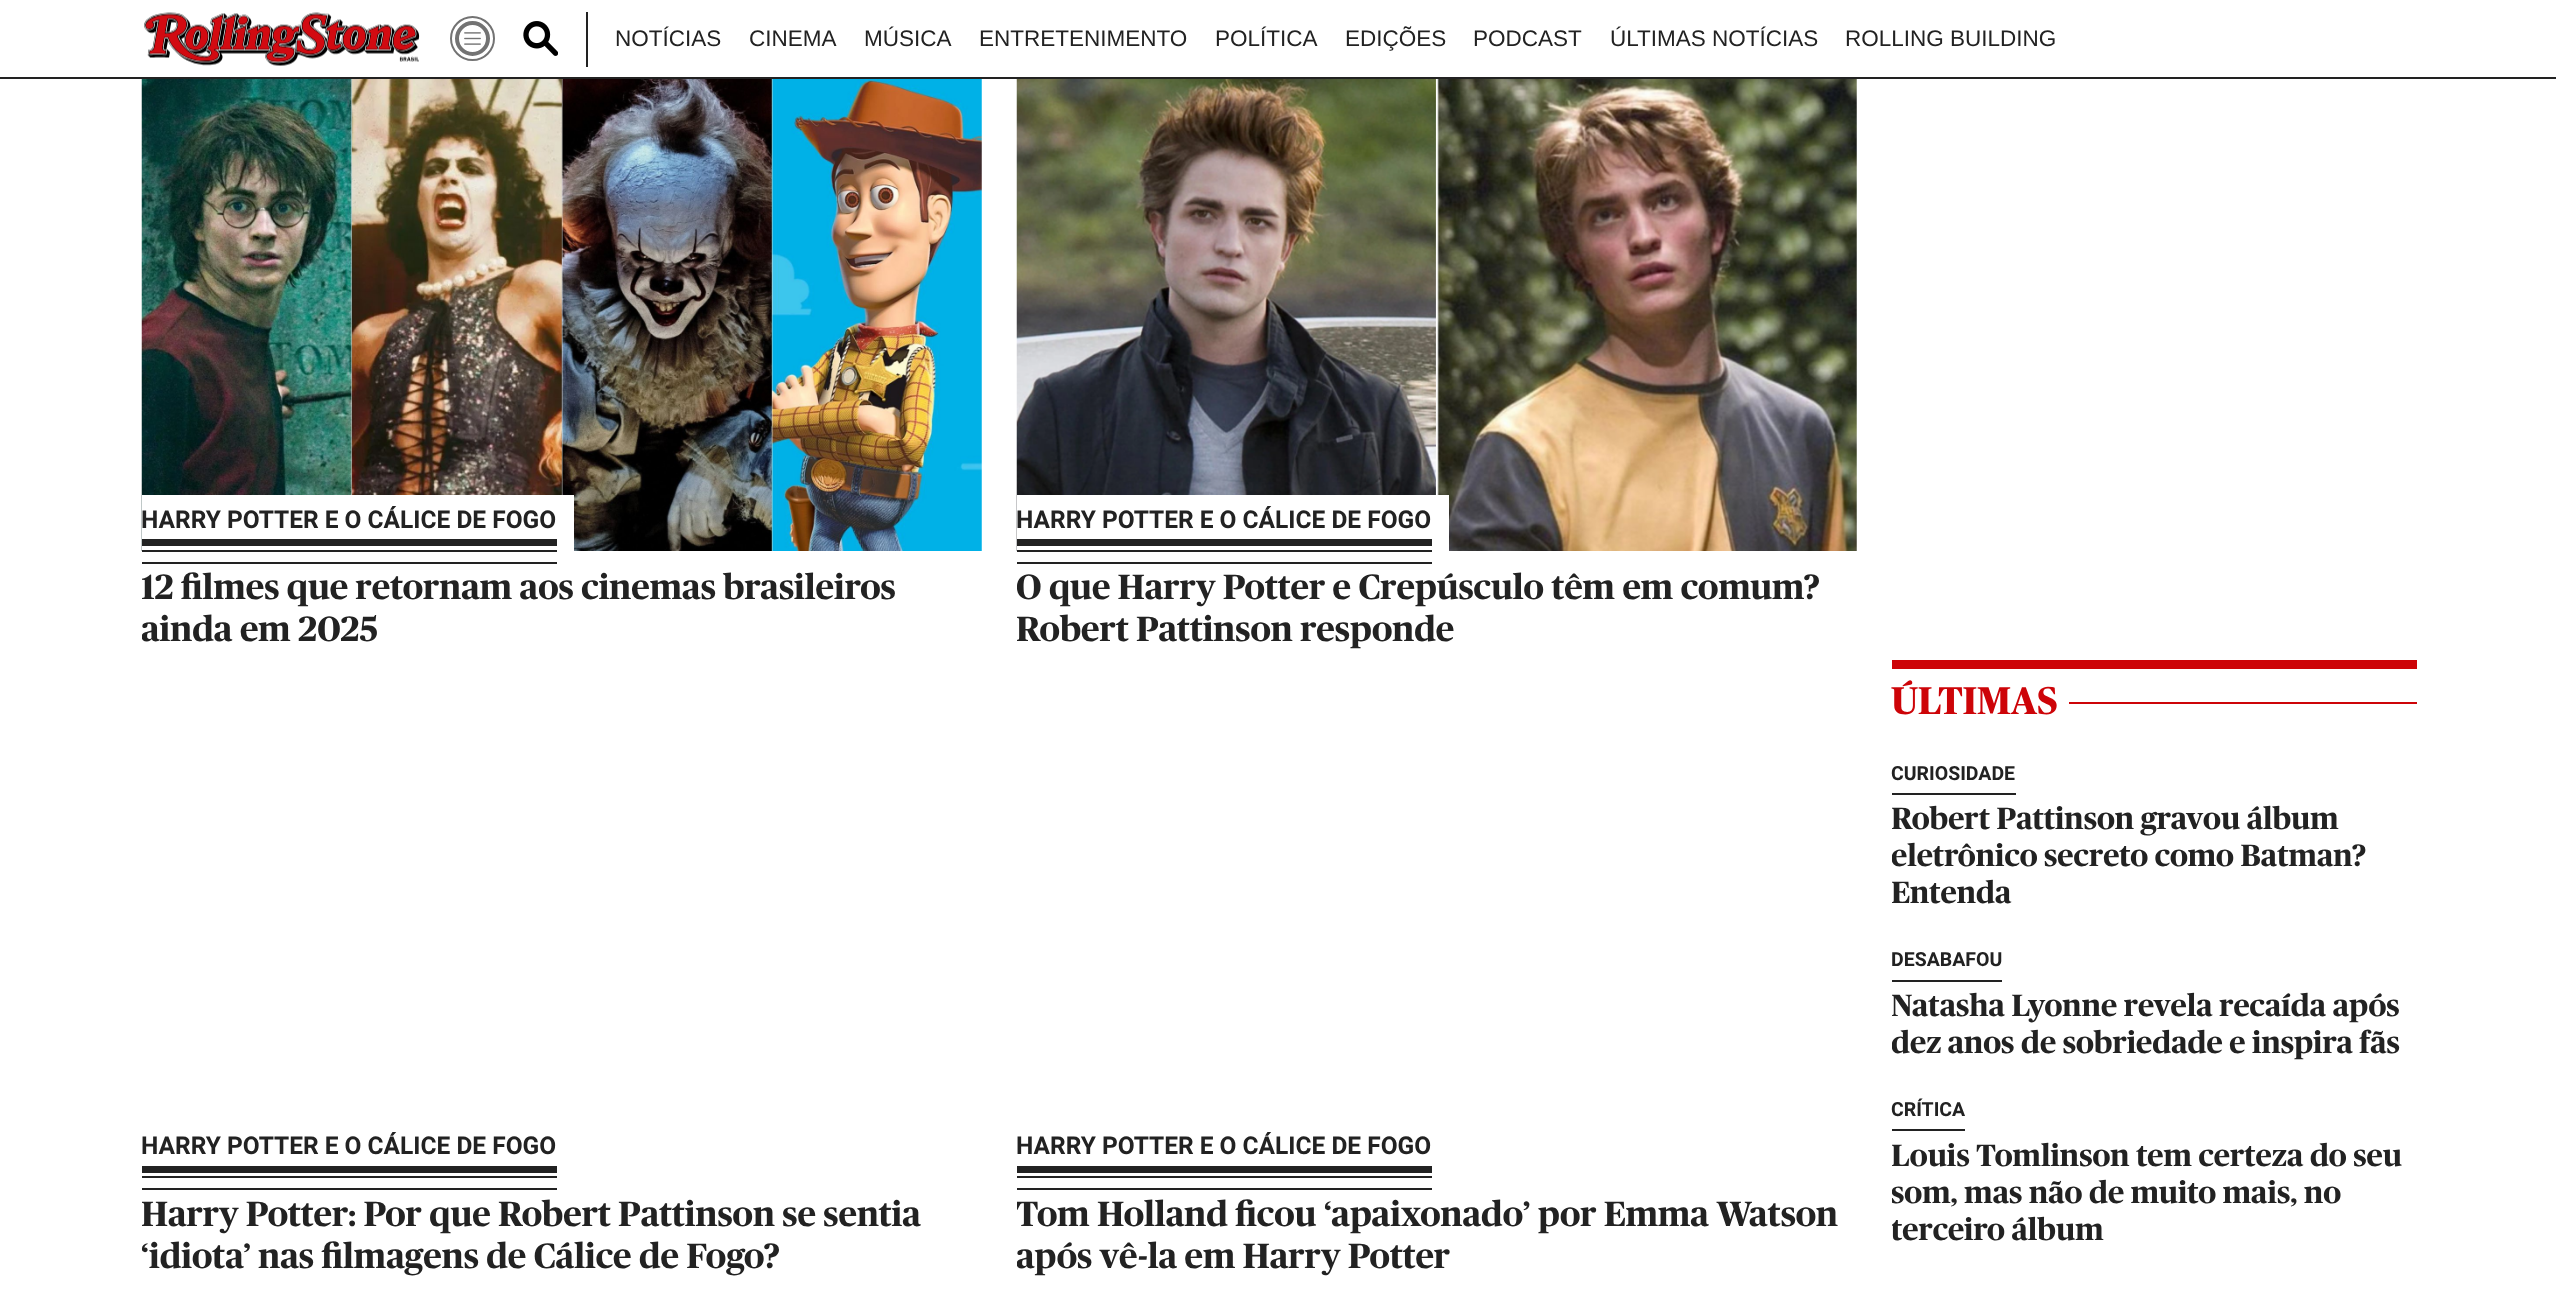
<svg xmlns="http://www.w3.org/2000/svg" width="2556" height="1295">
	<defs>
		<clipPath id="clip1"><rect x="142" y="565" width="840" height="84" /></clipPath>
		<clipPath id="clip2"><rect x="1017" y="565" width="840" height="84" /></clipPath>
		<clipPath id="clip3"><rect x="142" y="1192" width="840" height="84" /></clipPath>
		<clipPath id="clip4"><rect x="1017" y="1192" width="840" height="84" /></clipPath>
		<clipPath id="clip5"><rect x="1892" y="802" width="525" height="110" /></clipPath>
		<clipPath id="clip6"><rect x="1892" y="989" width="525" height="73" /></clipPath>
		<clipPath id="clip7"><rect x="1892" y="1138" width="525" height="112" /></clipPath>
	</defs>
	<rect width="100%" height="100%" fill="#FFFFFF" />
	<rect x="0" y="77" width="2556" height="2" fill="#222222" />
	<image x="144" y="12" width="276" height="54" href="assets/img1.png" />
	<circle cx="472.5" cy="38.5" r="21.5" fill="none" stroke="#737373" stroke-width="2" />
	<image x="464" y="32" width="17" height="13" href="assets/img2.png" />
	<circle cx="472.5" cy="38.5" r="15.5" fill="none" stroke="#737373" stroke-width="4" />
	<image x="523" y="21" width="35" height="35" href="assets/img3.png" />
	<rect x="586" y="12" width="2" height="55" fill="#222222" />
	<g font-family="Liberation Sans" font-size="22.5" fill="#222222">
		<text x="615" y="46">NOTÍCIAS</text>
		<text x="749" y="46">CINEMA</text>
		<text x="864" y="46">MÚSICA</text>
		<text x="979" y="46">ENTRETENIMENTO</text>
		<text x="1215" y="46">POLÍTICA</text>
		<text x="1345" y="46">EDIÇÕES</text>
		<text x="1473" y="46">PODCAST</text>
		<text x="1610" y="46">ÚLTIMAS NOTÍCIAS</text>
		<text x="1845" y="46">ROLLING BUILDING</text>
	</g>
	<image x="141" y="79" width="841" height="472" href="assets/img4.png" />
	<rect x="142" y="495" width="432" height="56" fill="#FFFFFF" />
	<rect x="142" y="550" width="415" height="2" fill="#222222" />
	<rect x="142" y="562" width="415" height="2" fill="#222222" />
	<text x="141" y="528" font-family="Roboto" font-size="24.5" font-weight="700" fill="#222222">HARRY POTTER E O CÁLICE DE FOGO</text>
	<rect x="142" y="539" width="415" height="7" fill="#222222" />
	<g clip-path="url(#clip1)">
		<g font-family="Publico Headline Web" font-size="35" font-weight="700" fill="#222222">
			<text x="141" y="599">12 filmes que retornam aos cinemas brasileiros</text>
			<text x="141" y="641">ainda em 2025</text>
		</g>
	</g>
	<image x="1016" y="79" width="841" height="472" href="assets/img5.png" />
	<rect x="1017" y="495" width="432" height="56" fill="#FFFFFF" />
	<rect x="1017" y="550" width="415" height="2" fill="#222222" />
	<rect x="1017" y="562" width="415" height="2" fill="#222222" />
	<text x="1016" y="528" font-family="Roboto" font-size="24.5" font-weight="700" fill="#222222">HARRY POTTER E O CÁLICE DE FOGO</text>
	<rect x="1017" y="539" width="415" height="7" fill="#222222" />
	<g clip-path="url(#clip2)">
		<g font-family="Publico Headline Web" font-size="35" font-weight="700" fill="#222222">
			<text x="1016" y="599">O que Harry Potter e Crepúsculo têm em comum?</text>
			<text x="1016" y="641">Robert Pattinson responde</text>
		</g>
	</g>
	<rect x="142" y="1176" width="415" height="2" fill="#222222" />
	<rect x="142" y="1188" width="415" height="2" fill="#222222" />
	<text x="141" y="1154" font-family="Roboto" font-size="24.5" font-weight="700" fill="#222222">HARRY POTTER E O CÁLICE DE FOGO</text>
	<rect x="142" y="1166" width="415" height="7" fill="#222222" />
	<g clip-path="url(#clip3)">
		<text x="141" y="1226" font-family="Publico Headline Web" font-size="35" font-weight="700" fill="#222222">Harry Potter: Por que Robert Pattinson se sentia</text>
	</g>
	<text x="141" y="1268" font-family="Publico Headline Web" font-size="35" font-weight="700" fill="#222222">‘idiota’ nas filmagens de Cálice de Fogo?</text>
	<rect x="1017" y="1176" width="415" height="2" fill="#222222" />
	<rect x="1017" y="1188" width="415" height="2" fill="#222222" />
	<text x="1016" y="1154" font-family="Roboto" font-size="24.5" font-weight="700" fill="#222222">HARRY POTTER E O CÁLICE DE FOGO</text>
	<rect x="1017" y="1166" width="415" height="7" fill="#222222" />
	<g clip-path="url(#clip4)">
		<g font-family="Publico Headline Web" font-size="35" font-weight="700" fill="#222222">
			<text x="1016" y="1226">Tom Holland ficou ‘apaixonado’ por Emma Watson</text>
			<text x="1016" y="1268">após vê-la em Harry Potter</text>
		</g>
	</g>
	<rect x="1892" y="660" width="525" height="9" fill="#CD0408" />
	<text x="1891" y="714" font-family="Publico Headline Web" font-size="38.5" font-weight="700" fill="#CD0408">ÚLTIMAS</text>
	<rect x="2069" y="702" width="348" height="2" fill="#CD0408" />
	<rect x="1892" y="793" width="124" height="2" fill="#222222" />
	<text x="1891" y="780" font-family="Roboto" font-size="19.5" font-weight="700" fill="#222222">CURIOSIDADE</text>
	<g clip-path="url(#clip5)">
		<g font-family="Publico Headline Web" font-size="30.75" font-weight="700" fill="#222222">
			<text x="1891" y="829">Robert Pattinson gravou álbum</text>
			<text x="1891" y="866">eletrônico secreto como Batman?</text>
			<text x="1891" y="903">Entenda</text>
		</g>
	</g>
	<rect x="1892" y="980" width="110" height="2" fill="#222222" />
	<text x="1891" y="966" font-family="Roboto" font-size="19.5" font-weight="700" fill="#222222">DESABAFOU</text>
	<g clip-path="url(#clip6)">
		<g font-family="Publico Headline Web" font-size="30.75" font-weight="700" fill="#222222">
			<text x="1891" y="1016">Natasha Lyonne revela recaída após</text>
			<text x="1891" y="1053">dez anos de sobriedade e inspira fãs</text>
		</g>
	</g>
	<rect x="1892" y="1129" width="73" height="2" fill="#222222" />
	<text x="1891" y="1116" font-family="Roboto" font-size="19.5" font-weight="700" fill="#222222">CRÍTICA</text>
	<g clip-path="url(#clip7)">
		<g font-family="Publico Headline Web" font-size="30.75" font-weight="700" fill="#222222">
			<text x="1891" y="1166">Louis Tomlinson tem certeza do seu</text>
			<text x="1891" y="1203">som, mas não de muito mais, no</text>
			<text x="1891" y="1240">terceiro álbum</text>
		</g>
	</g>
</svg>
